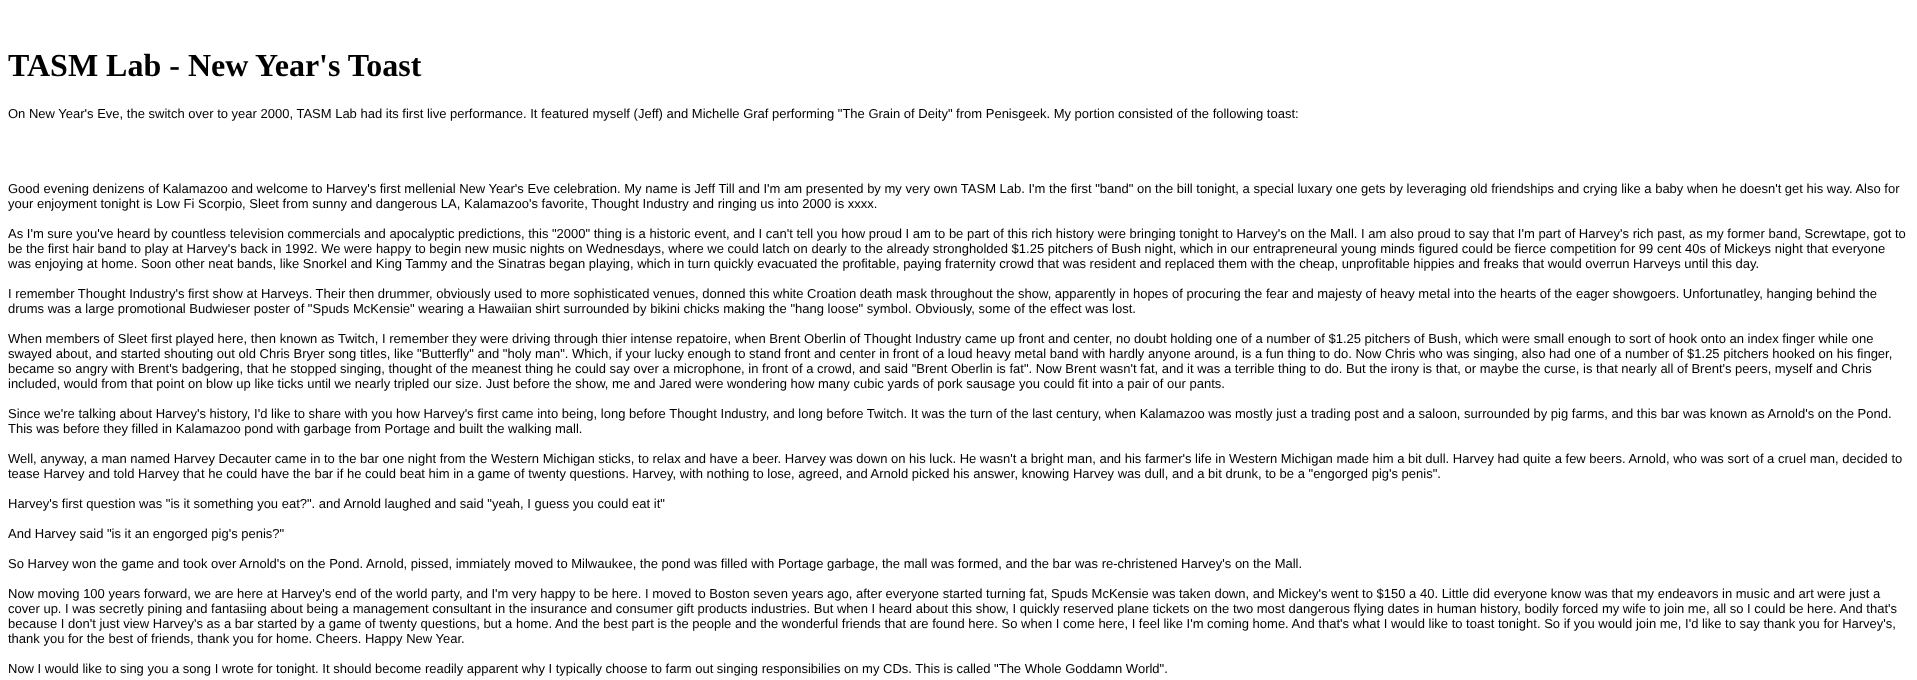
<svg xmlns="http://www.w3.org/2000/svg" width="1917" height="680">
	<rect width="100%" height="100%" fill="#FFFFFF" />
	<text x="8" y="76" font-family="Liberation Serif" font-size="32" font-weight="700" fill="#000000">TASM Lab - New Year's Toast</text>
	<g font-family="Liberation Sans" font-size="13" fill="#000000">
		<text x="8" y="118">On New Year's Eve, the switch over to year 2000, TASM Lab had its first live performance. It featured myself (Jeff) and Michelle Graf performing "The Grain of Deity" from Penisgeek. My portion consisted of the following toast:</text>
		<text x="8" y="193">Good evening denizens of Kalamazoo and welcome to Harvey's first mellenial New Year's Eve celebration. My name is Jeff Till and I'm am presented by my very own TASM Lab. I'm the first "band" on the bill tonight, a special luxary one gets by leveraging old friendships and crying like a baby when he doesn't get his way. Also for</text>
		<text x="8" y="208">your enjoyment tonight is Low Fi Scorpio, Sleet from sunny and dangerous LA, Kalamazoo's favorite, Thought Industry and ringing us into 2000 is xxxx.</text>
		<text x="8" y="238">As I'm sure you've heard by countless television commercials and apocalyptic predictions, this "2000" thing is a historic event, and I can't tell you how proud I am to be part of this rich history were bringing tonight to Harvey's on the Mall. I am also proud to say that I'm part of Harvey's rich past, as my former band, Screwtape, got to</text>
		<text x="8" y="253">be the first hair band to play at Harvey's back in 1992. We were happy to begin new music nights on Wednesdays, where we could latch on dearly to the already strongholded $1.25 pitchers of Bush night, which in our entrapreneural young minds figured could be fierce competition for 99 cent 40s of Mickeys night that everyone</text>
		<text x="8" y="268">was enjoying at home. Soon other neat bands, like Snorkel and King Tammy and the Sinatras began playing, which in turn quickly evacuated the profitable, paying fraternity crowd that was resident and replaced them with the cheap, unprofitable hippies and freaks that would overrun Harveys until this day.</text>
		<text x="8" y="298">I remember Thought Industry's first show at Harveys. Their then drummer, obviously used to more sophisticated venues, donned this white Croation death mask throughout the show, apparently in hopes of procuring the fear and majesty of heavy metal into the hearts of the eager showgoers. Unfortunatley, hanging behind the</text>
		<text x="8" y="313">drums was a large promotional Budwieser poster of "Spuds McKensie" wearing a Hawaiian shirt surrounded by bikini chicks making the "hang loose" symbol. Obviously, some of the effect was lost.</text>
		<text x="8" y="343">When members of Sleet first played here, then known as Twitch, I remember they were driving through thier intense repatoire, when Brent Oberlin of Thought Industry came up front and center, no doubt holding one of a number of $1.25 pitchers of Bush, which were small enough to sort of hook onto an index finger while one</text>
		<text x="8" y="358">swayed about, and started shouting out old Chris Bryer song titles, like "Butterfly" and "holy man". Which, if your lucky enough to stand front and center in front of a loud heavy metal band with hardly anyone around, is a fun thing to do. Now Chris who was singing, also had one of a number of $1.25 pitchers hooked on his finger,</text>
		<text x="8" y="373">became so angry with Brent's badgering, that he stopped singing, thought of the meanest thing he could say over a microphone, in front of a crowd, and said "Brent Oberlin is fat". Now Brent wasn't fat, and it was a terrible thing to do. But the irony is that, or maybe the curse, is that nearly all of Brent's peers, myself and Chris</text>
		<text x="8" y="388">included, would from that point on blow up like ticks until we nearly tripled our size. Just before the show, me and Jared were wondering how many cubic yards of pork sausage you could fit into a pair of our pants.</text>
		<text x="8" y="418">Since we're talking about Harvey's history, I'd like to share with you how Harvey's first came into being, long before Thought Industry, and long before Twitch. It was the turn of the last century, when Kalamazoo was mostly just a trading post and a saloon, surrounded by pig farms, and this bar was known as Arnold's on the Pond.</text>
		<text x="8" y="433">This was before they filled in Kalamazoo pond with garbage from Portage and built the walking mall.</text>
		<text x="8" y="463">Well, anyway, a man named Harvey Decauter came in to the bar one night from the Western Michigan sticks, to relax and have a beer. Harvey was down on his luck. He wasn't a bright man, and his farmer's life in Western Michigan made him a bit dull. Harvey had quite a few beers. Arnold, who was sort of a cruel man, decided to</text>
		<text x="8" y="478">tease Harvey and told Harvey that he could have the bar if he could beat him in a game of twenty questions. Harvey, with nothing to lose, agreed, and Arnold picked his answer, knowing Harvey was dull, and a bit drunk, to be a "engorged pig's penis".</text>
		<text x="8" y="508">Harvey's first question was "is it something you eat?". and Arnold laughed and said "yeah, I guess you could eat it"</text>
		<text x="8" y="538">And Harvey said "is it an engorged pig's penis?"</text>
		<text x="8" y="568">So Harvey won the game and took over Arnold's on the Pond. Arnold, pissed, immiately moved to Milwaukee, the pond was filled with Portage garbage, the mall was formed, and the bar was re-christened Harvey's on the Mall.</text>
		<text x="8" y="598">Now moving 100 years forward, we are here at Harvey's end of the world party, and I'm very happy to be here. I moved to Boston seven years ago, after everyone started turning fat, Spuds McKensie was taken down, and Mickey's went to $150 a 40. Little did everyone know was that my endeavors in music and art were just a</text>
		<text x="8" y="613">cover up. I was secretly pining and fantasiing about being a management consultant in the insurance and consumer gift products industries. But when I heard about this show, I quickly reserved plane tickets on the two most dangerous flying dates in human history, bodily forced my wife to join me, all so I could be here. And that's</text>
		<text x="8" y="628">because I don't just view Harvey's as a bar started by a game of twenty questions, but a home. And the best part is the people and the wonderful friends that are found here. So when I come here, I feel like I'm coming home. And that's what I would like to toast tonight. So if you would join me, I'd like to say thank you for Harvey's,</text>
		<text x="8" y="643">thank you for the best of friends, thank you for home. Cheers. Happy New Year.</text>
		<text x="8" y="673">Now I would like to sing you a song I wrote for tonight. It should become readily apparent why I typically choose to farm out singing responsibilies on my CDs. This is called "The Whole Goddamn World".</text>
	</g>
</svg>
